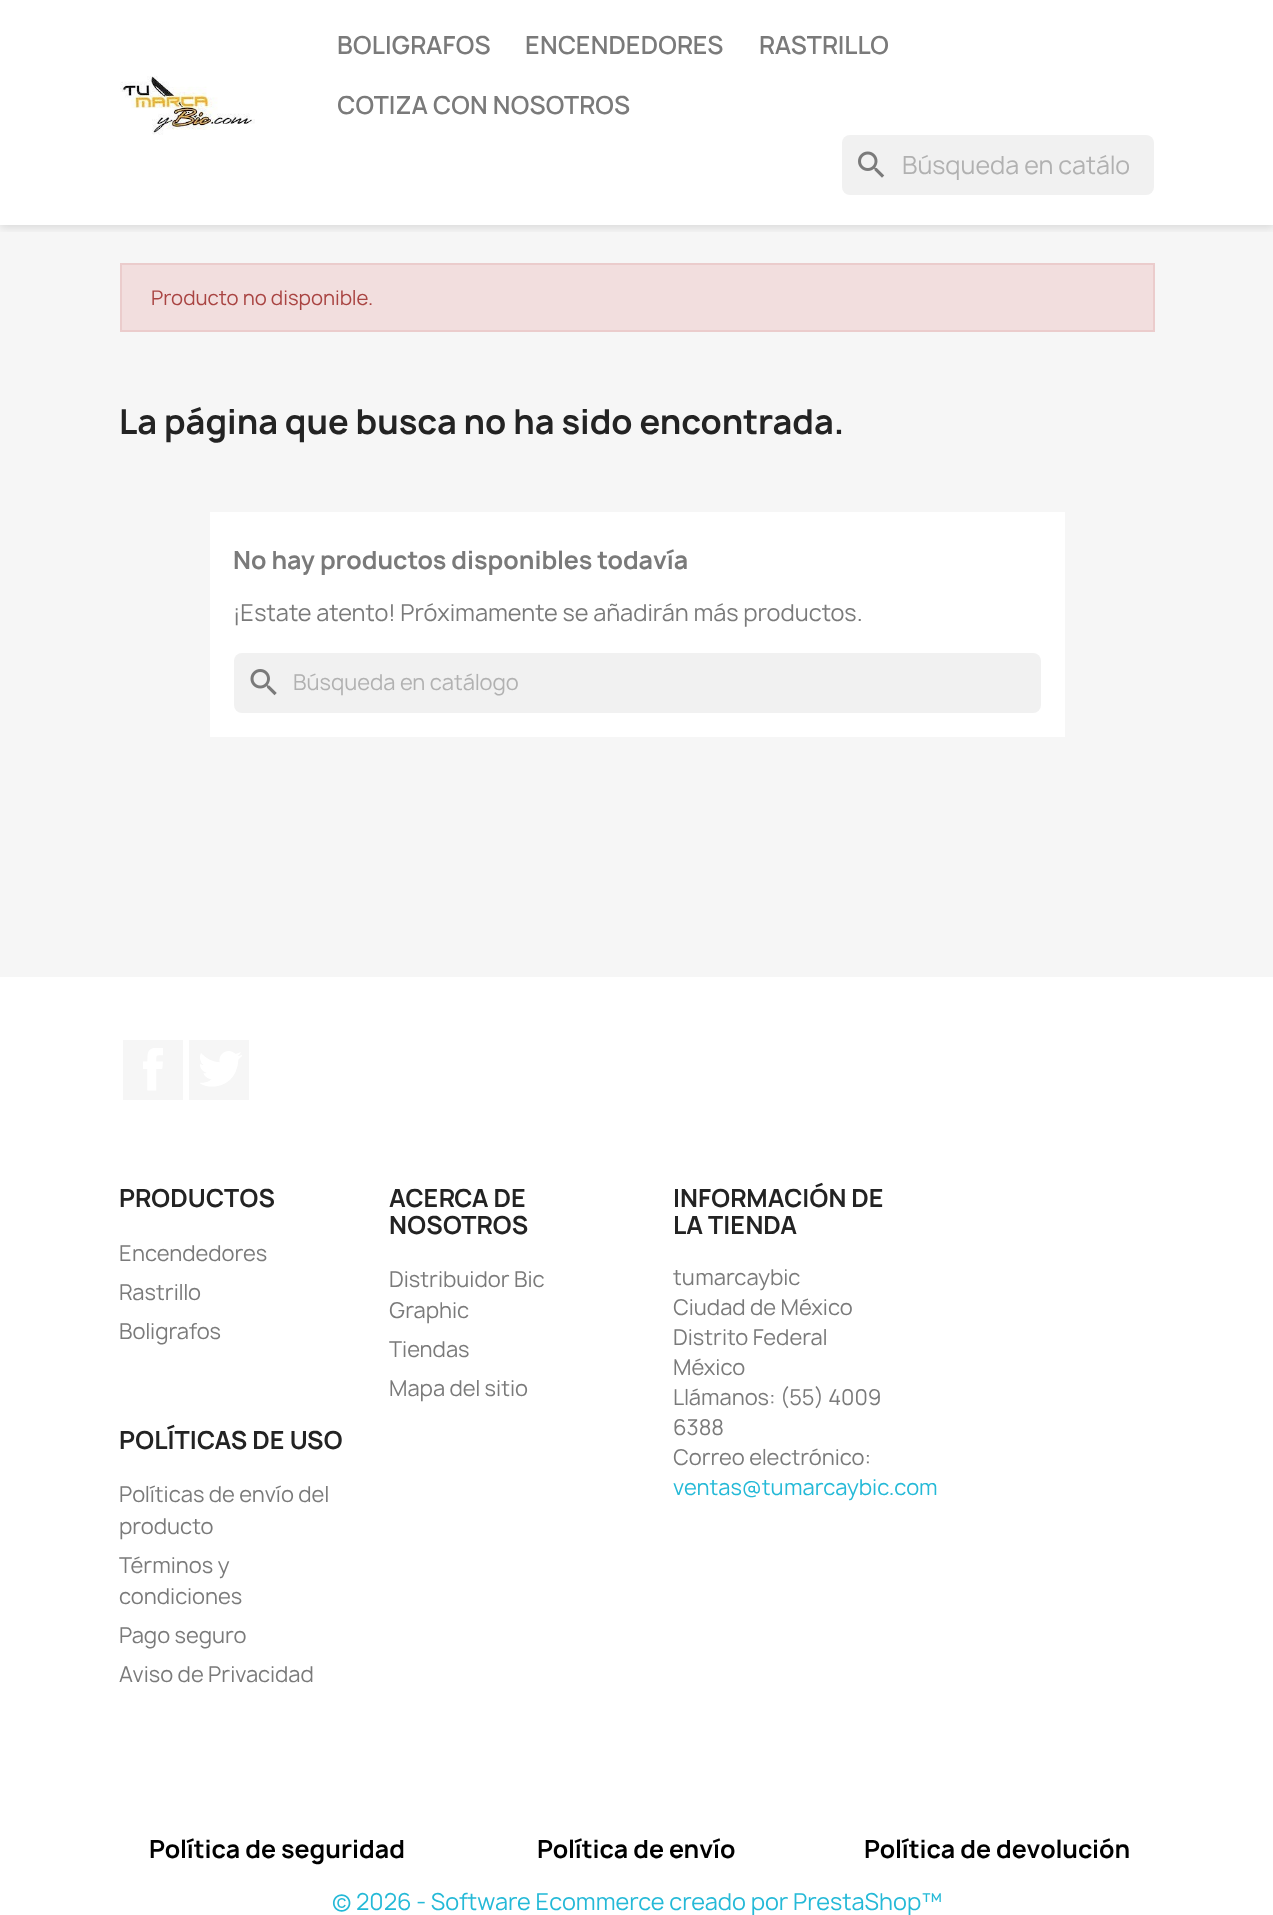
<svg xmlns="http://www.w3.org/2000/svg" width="1273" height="1915">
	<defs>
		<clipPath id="clip1"><rect x="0" y="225" width="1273" height="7" /></clipPath>
	</defs>
	<rect width="100%" height="100%" fill="#FFFFFF" />
	<rect x="0" y="225" width="1273" height="752" fill="#F6F6F6" />
	<g clip-path="url(#clip1)">
		<rect x="0" y="-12" width="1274" height="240" fill="#000000" fill-opacity="0.11" filter="blur(4px)" />
	</g>
	<image x="120" y="76" width="135" height="59" href="assets/img1.png" />
	<g font-family="Manrope" font-size="24" font-weight="600" fill="#7A7A7A">
		<text x="337" y="54">BOLIGRAFOS</text>
		<text x="525" y="54">ENCENDEDORES</text>
		<text x="759" y="54">RASTRILLO</text>
		<text x="337" y="114">COTIZA CON NOSOTROS</text>
	</g>
	<rect x="842" y="135" width="312" height="60" rx="8" fill="#F1F1F1" />
	<image x="858" y="151" width="27" height="27" href="assets/img2.png" />
	<text x="902" y="174" font-family="Manrope" font-size="24" fill="#B1B1B1">Búsqueda en catálo</text>
	<rect x="121" y="264" width="1033" height="67" fill="#F2DEDE" stroke="#EBCCCC" stroke-width="2" />
	<text x="151" y="305" font-family="Manrope" font-size="19.5" fill="#A94442">Producto no disponible.</text>
	<text x="119" y="434" font-family="Manrope" font-size="33" font-weight="700" fill="#232323">La página que busca no ha sido encontrada.</text>
	<rect x="210" y="512" width="855" height="225" fill="#FFFFFF" />
	<text x="233" y="569" font-family="Manrope" font-size="24" font-weight="700" fill="#7A7A7A">No hay productos disponibles todavía</text>
	<text x="233" y="621" font-family="Manrope" font-size="22.5" fill="#7A7A7A">¡Estate atento! Próximamente se añadirán más productos.</text>
	<rect x="234" y="653" width="807" height="60" rx="8" fill="#F1F1F1" />
	<image x="250" y="669" width="27" height="27" href="assets/img3.png" />
	<text x="293" y="690" font-family="Manrope" font-size="21" fill="#B1B1B1">Búsqueda en catálogo</text>
	<rect x="123" y="1040" width="60" height="60" fill="#F6F6F6" />
	<image x="143" y="1048" width="20" height="43" href="assets/img4.png" />
	<rect x="189" y="1040" width="60" height="60" fill="#F6F6F6" />
	<image x="200" y="1051" width="42" height="36" href="assets/img5.png" />
	<text x="119" y="1207" font-family="Manrope" font-size="24" font-weight="700" fill="#232323">PRODUCTOS</text>
	<g font-family="Manrope" font-size="21" fill="#7A7A7A">
		<text x="119" y="1261">Encendedores</text>
		<text x="119" y="1300">Rastrillo</text>
		<text x="119" y="1339">Boligrafos</text>
	</g>
	<g font-family="Manrope" font-size="24" font-weight="700" fill="#232323">
		<text x="389" y="1207">ACERCA DE</text>
		<text x="389" y="1234">NOSOTROS</text>
	</g>
	<g font-family="Manrope" font-size="21" fill="#7A7A7A">
		<text x="389" y="1287">Distribuidor Bic</text>
		<text x="389" y="1318">Graphic</text>
		<text x="389" y="1357">Tiendas</text>
		<text x="389" y="1396">Mapa del sitio</text>
	</g>
	<text x="119" y="1449" font-family="Manrope" font-size="24" font-weight="700" fill="#232323">POLÍTICAS DE USO</text>
	<g font-family="Manrope" font-size="21" fill="#7A7A7A">
		<text x="119" y="1502">Políticas de envío del</text>
		<text x="119" y="1534">producto</text>
		<text x="119" y="1573">Términos y</text>
		<text x="119" y="1604">condiciones</text>
		<text x="119" y="1643">Pago seguro</text>
		<text x="119" y="1682">Aviso de Privacidad</text>
	</g>
	<g font-family="Manrope" font-size="24" font-weight="700" fill="#232323">
		<text x="673" y="1207">INFORMACIÓN DE</text>
		<text x="673" y="1234">LA TIENDA</text>
	</g>
	<g font-family="Manrope" font-size="21" fill="#7A7A7A">
		<text x="673" y="1285">tumarcaybic</text>
		<text x="673" y="1315">Ciudad de México</text>
		<text x="673" y="1345">Distrito Federal</text>
		<text x="673" y="1375">México</text>
		<text x="673" y="1405">Llámanos: (55) 4009</text>
		<text x="673" y="1435">6388</text>
		<text x="673" y="1465">Correo electrónico:</text>
	</g>
	<text x="673" y="1495" font-family="Manrope" font-size="21" fill="#24B9D7">ventas@tumarcaybic.com</text>
	<g font-family="Manrope" font-size="24" font-weight="700" fill="#000000">
		<text x="149" y="1858">Política de seguridad</text>
		<text x="537" y="1858">Política de envío</text>
		<text x="864" y="1858">Política de devolución</text>
	</g>
	<text x="332" y="1910" font-family="Manrope" font-size="22.5" fill="#24B9D7">© 2026 - Software Ecommerce creado por PrestaShop™</text>
</svg>
